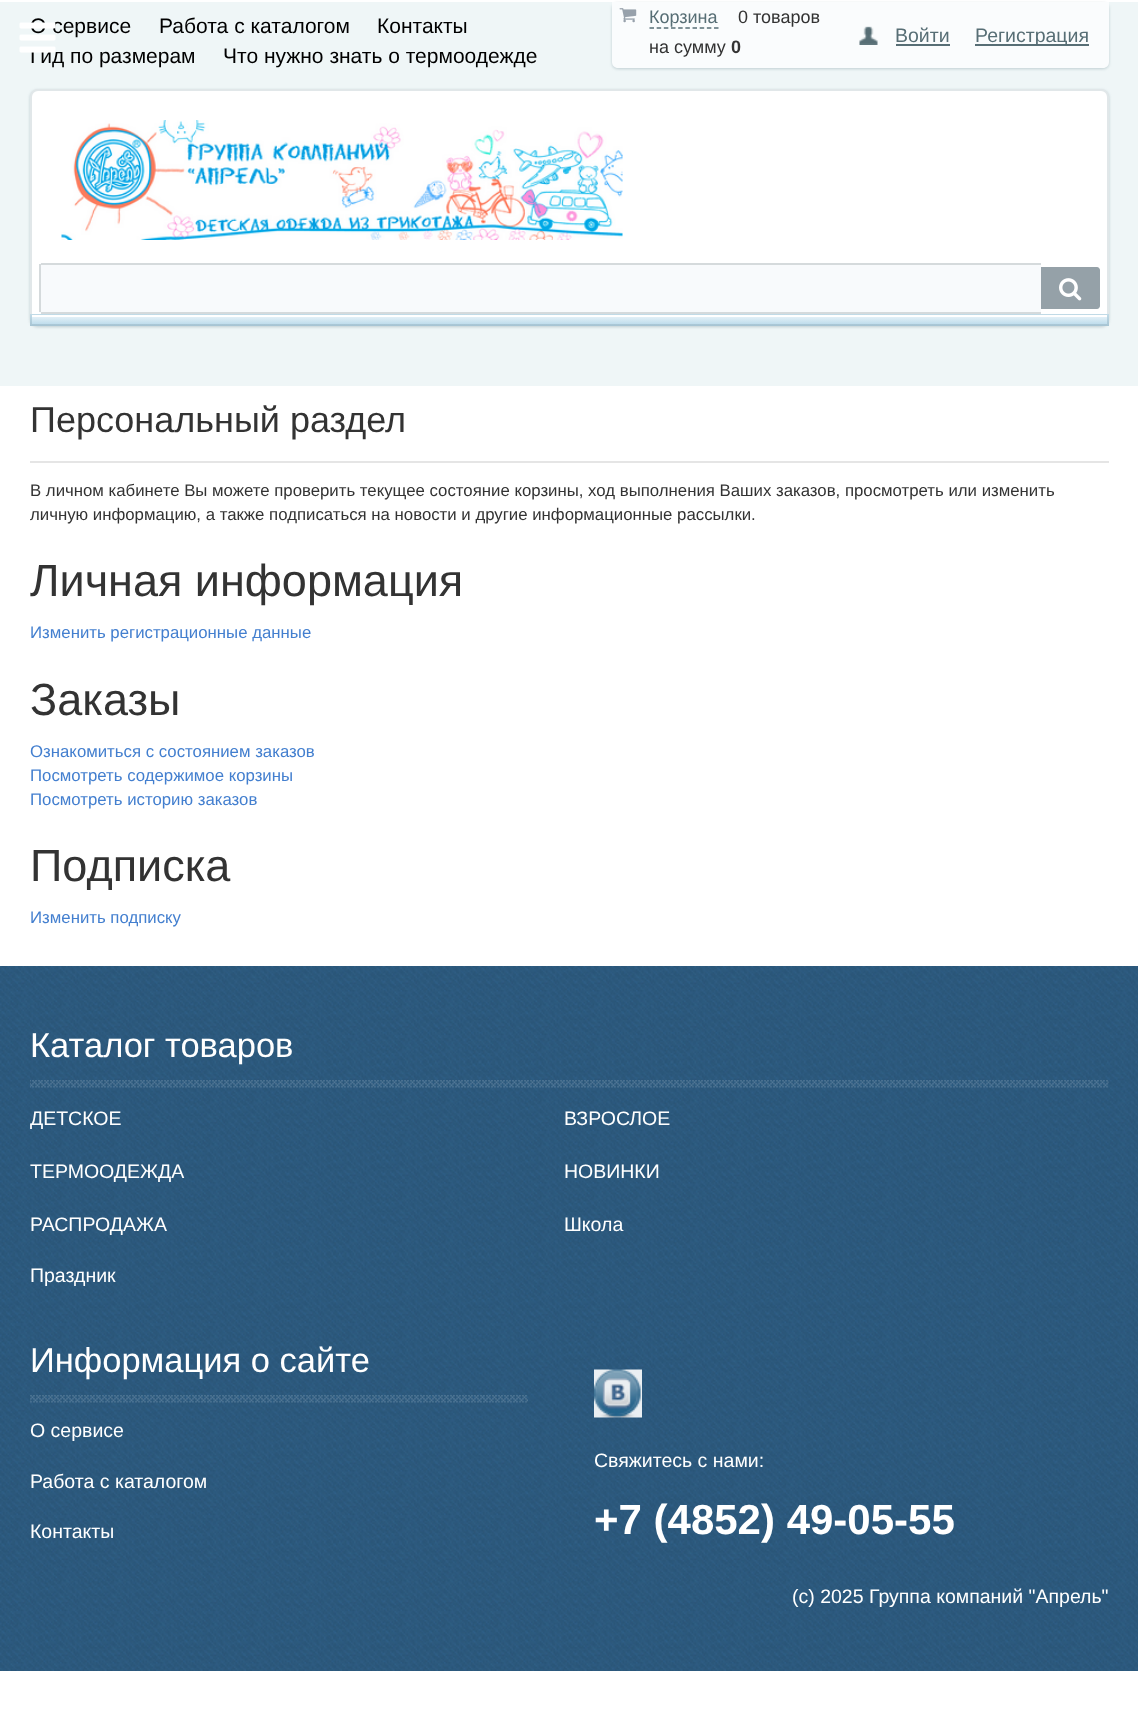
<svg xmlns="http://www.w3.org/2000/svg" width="1138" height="1725">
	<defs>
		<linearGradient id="g1" gradientUnits="userSpaceOnUse" x1="569" y1="313" x2="569" y2="326"><stop offset="0" stop-color="#C4DDE9" /><stop offset="1" stop-color="#A6C4D3" /></linearGradient>
		<linearGradient id="g2" gradientUnits="userSpaceOnUse" x1="569" y1="315" x2="569" y2="324"><stop offset="0" stop-color="#ECF5FA" /><stop offset="1" stop-color="#BFDDEC" /></linearGradient>
	</defs>
	<rect width="100%" height="100%" fill="#FFFFFF" />
	<rect x="0" y="2" width="1138" height="384" fill="#EFF6F7" />
	<g font-family="Liberation Sans" font-size="21" fill="#000000">
		<text x="30" y="33">О сервисе</text>
		<text x="159" y="33">Работа с каталогом</text>
		<text x="377" y="33">Контакты</text>
		<text x="30" y="63">Гид по размерам</text>
		<text x="223" y="63">Что нужно знать о термоодежде</text>
	</g>
	<rect x="612" y="3" width="497" height="66" rx="6" fill="#385E68" fill-opacity="0.26" filter="blur(1.5px)" />
	<path d="M612 2H1109V62C1109 65.5 1106.5 68 1103 68H618C614.5 68 612 65.5 612 62Z" fill="#FAFCFD" />
	<image x="619" y="8" width="18" height="15" href="assets/img1.png" />
	<text x="649" y="23" font-family="Liberation Sans" font-size="18" fill="#576E75">Корзина</text>
	<path d="M649.5 28H718.5" fill="none" stroke="#576E75" stroke-width="1.5" stroke-dasharray="4.5 2.67" />
	<g font-family="Liberation Sans" font-size="18" fill="#333333">
		<text x="738" y="23">0 товаров</text>
		<text x="649" y="53">на сумму</text>
	</g>
	<text x="731" y="53" font-family="Liberation Sans" font-size="18" font-weight="700" fill="#333333">0</text>
	<image x="859" y="26" width="19" height="19" href="assets/img2.png" />
	<text x="895" y="42" font-family="Liberation Sans" font-size="19.5" fill="#576E75">Войти</text>
	<rect x="896" y="44" width="54" height="2" fill="#576E75" />
	<rect x="975" y="44" width="114" height="2" fill="#576E75" />
	<text x="975" y="42" font-family="Liberation Sans" font-size="19.5" fill="#576E75">Регистрация</text>
	<rect x="30" y="90" width="1079" height="237" rx="8" fill="#385E68" fill-opacity="0.26" filter="blur(1.5px)" />
	<path d="M38 90H1101C1105 90 1108 93 1108 97V325H31V97C31 93 34 90 38 90Z" fill="#FFFFFF" stroke="#E1E7E9" stroke-width="2" />
	<image x="61" y="120" width="562" height="120" href="assets/img3.png" />
	<path d="M42 263H1041V314H42C40.5 314 39 312.5 39 311V266C39 264.5 40.5 263 42 263Z" fill="#F8FAFC" />
	<rect x="41" y="263" width="1000" height="2" fill="#D5DADC" />
	<rect x="41" y="312" width="1000" height="2" fill="#D5DADC" />
	<rect x="39" y="264" width="2" height="48" fill="#D5DADC" />
	<path d="M1041 267H1097C1098.5 267 1100 268.5 1100 270V306C1100 307.5 1098.5 309 1097 309H1041Z" fill="#95A1A8" />
	<image x="1059" y="278" width="23" height="23" href="assets/img4.png" />
	<rect x="30" y="314" width="1079" height="12" fill="url(#g1)" />
	<rect x="32" y="317" width="1075" height="7" fill="url(#g2)" />
	<rect x="32" y="315" width="1075" height="2" fill="#FFFFFF" />
	<rect x="30" y="461" width="1079" height="2" fill="#E5E5E5" />
	<text x="30" y="432" font-family="Liberation Sans" font-size="36" fill="#333333">Персональный раздел</text>
	<g font-family="Liberation Sans" font-size="16.8" fill="#333333">
		<text x="30" y="496">В личном кабинете Вы можете проверить текущее состояние корзины, ход выполнения Ваших заказов, просмотреть или изменить</text>
		<text x="30" y="520">личную информацию, а также подписаться на новости и другие информационные рассылки.</text>
	</g>
	<text x="30" y="596" font-family="Liberation Sans" font-size="45" fill="#333333">Личная информация</text>
	<text x="30" y="638" font-family="Liberation Sans" font-size="16.8" fill="#437FCF">Изменить регистрационные данные</text>
	<text x="30" y="715" font-family="Liberation Sans" font-size="45" fill="#333333">Заказы</text>
	<g font-family="Liberation Sans" font-size="16.8" fill="#437FCF">
		<text x="30" y="757">Ознакомиться с состоянием заказов</text>
		<text x="30" y="781">Посмотреть содержимое корзины</text>
		<text x="30" y="805">Посмотреть историю заказов</text>
	</g>
	<text x="30" y="881" font-family="Liberation Sans" font-size="45" fill="#333333">Подписка</text>
	<text x="30" y="923" font-family="Liberation Sans" font-size="16.8" fill="#437FCF">Изменить подписку</text>
	<image x="0" y="966" width="1138" height="705" href="assets/img5.png" />
	<image x="30" y="1080" width="1079" height="8" href="assets/img6.png" />
	<text x="30" y="1057" font-family="Liberation Sans" font-size="34.5" fill="#FFFFFF">Каталог товаров</text>
	<g font-family="Liberation Sans" font-size="19.5" fill="#FFFFFF">
		<text x="30" y="1125">ДЕТСКОЕ</text>
		<text x="564" y="1125">ВЗРОСЛОЕ</text>
		<text x="30" y="1178">ТЕРМООДЕЖДА</text>
		<text x="564" y="1178">НОВИНКИ</text>
		<text x="30" y="1231">РАСПРОДАЖА</text>
		<text x="564" y="1231">Школа</text>
		<text x="30" y="1282">Праздник</text>
	</g>
	<image x="30" y="1395" width="498" height="8" href="assets/img7.png" />
	<text x="30" y="1372" font-family="Liberation Sans" font-size="34.5" fill="#FFFFFF">Информация о сайте</text>
	<g font-family="Liberation Sans" font-size="19.5" fill="#FFFFFF">
		<text x="30" y="1437">О сервисе</text>
		<text x="30" y="1488">Работа с каталогом</text>
		<text x="30" y="1538">Контакты</text>
	</g>
	<image x="594" y="1369" width="48" height="49" href="assets/img8.png" />
	<text x="594" y="1467" font-family="Liberation Sans" font-size="19.5" fill="#FFFFFF">Свяжитесь с нами:</text>
	<text x="594" y="1534" font-family="Liberation Sans" font-size="42" font-weight="700" fill="#FFFFFF">+7 (4852) 49-05-55</text>
	<text x="792" y="1603" font-family="Liberation Sans" font-size="19.5" fill="#FFFFFF">(c) 2025 Группа компаний "Апрель"</text>
	<image x="19" y="22" width="37" height="31" href="assets/img9.png" />
</svg>
